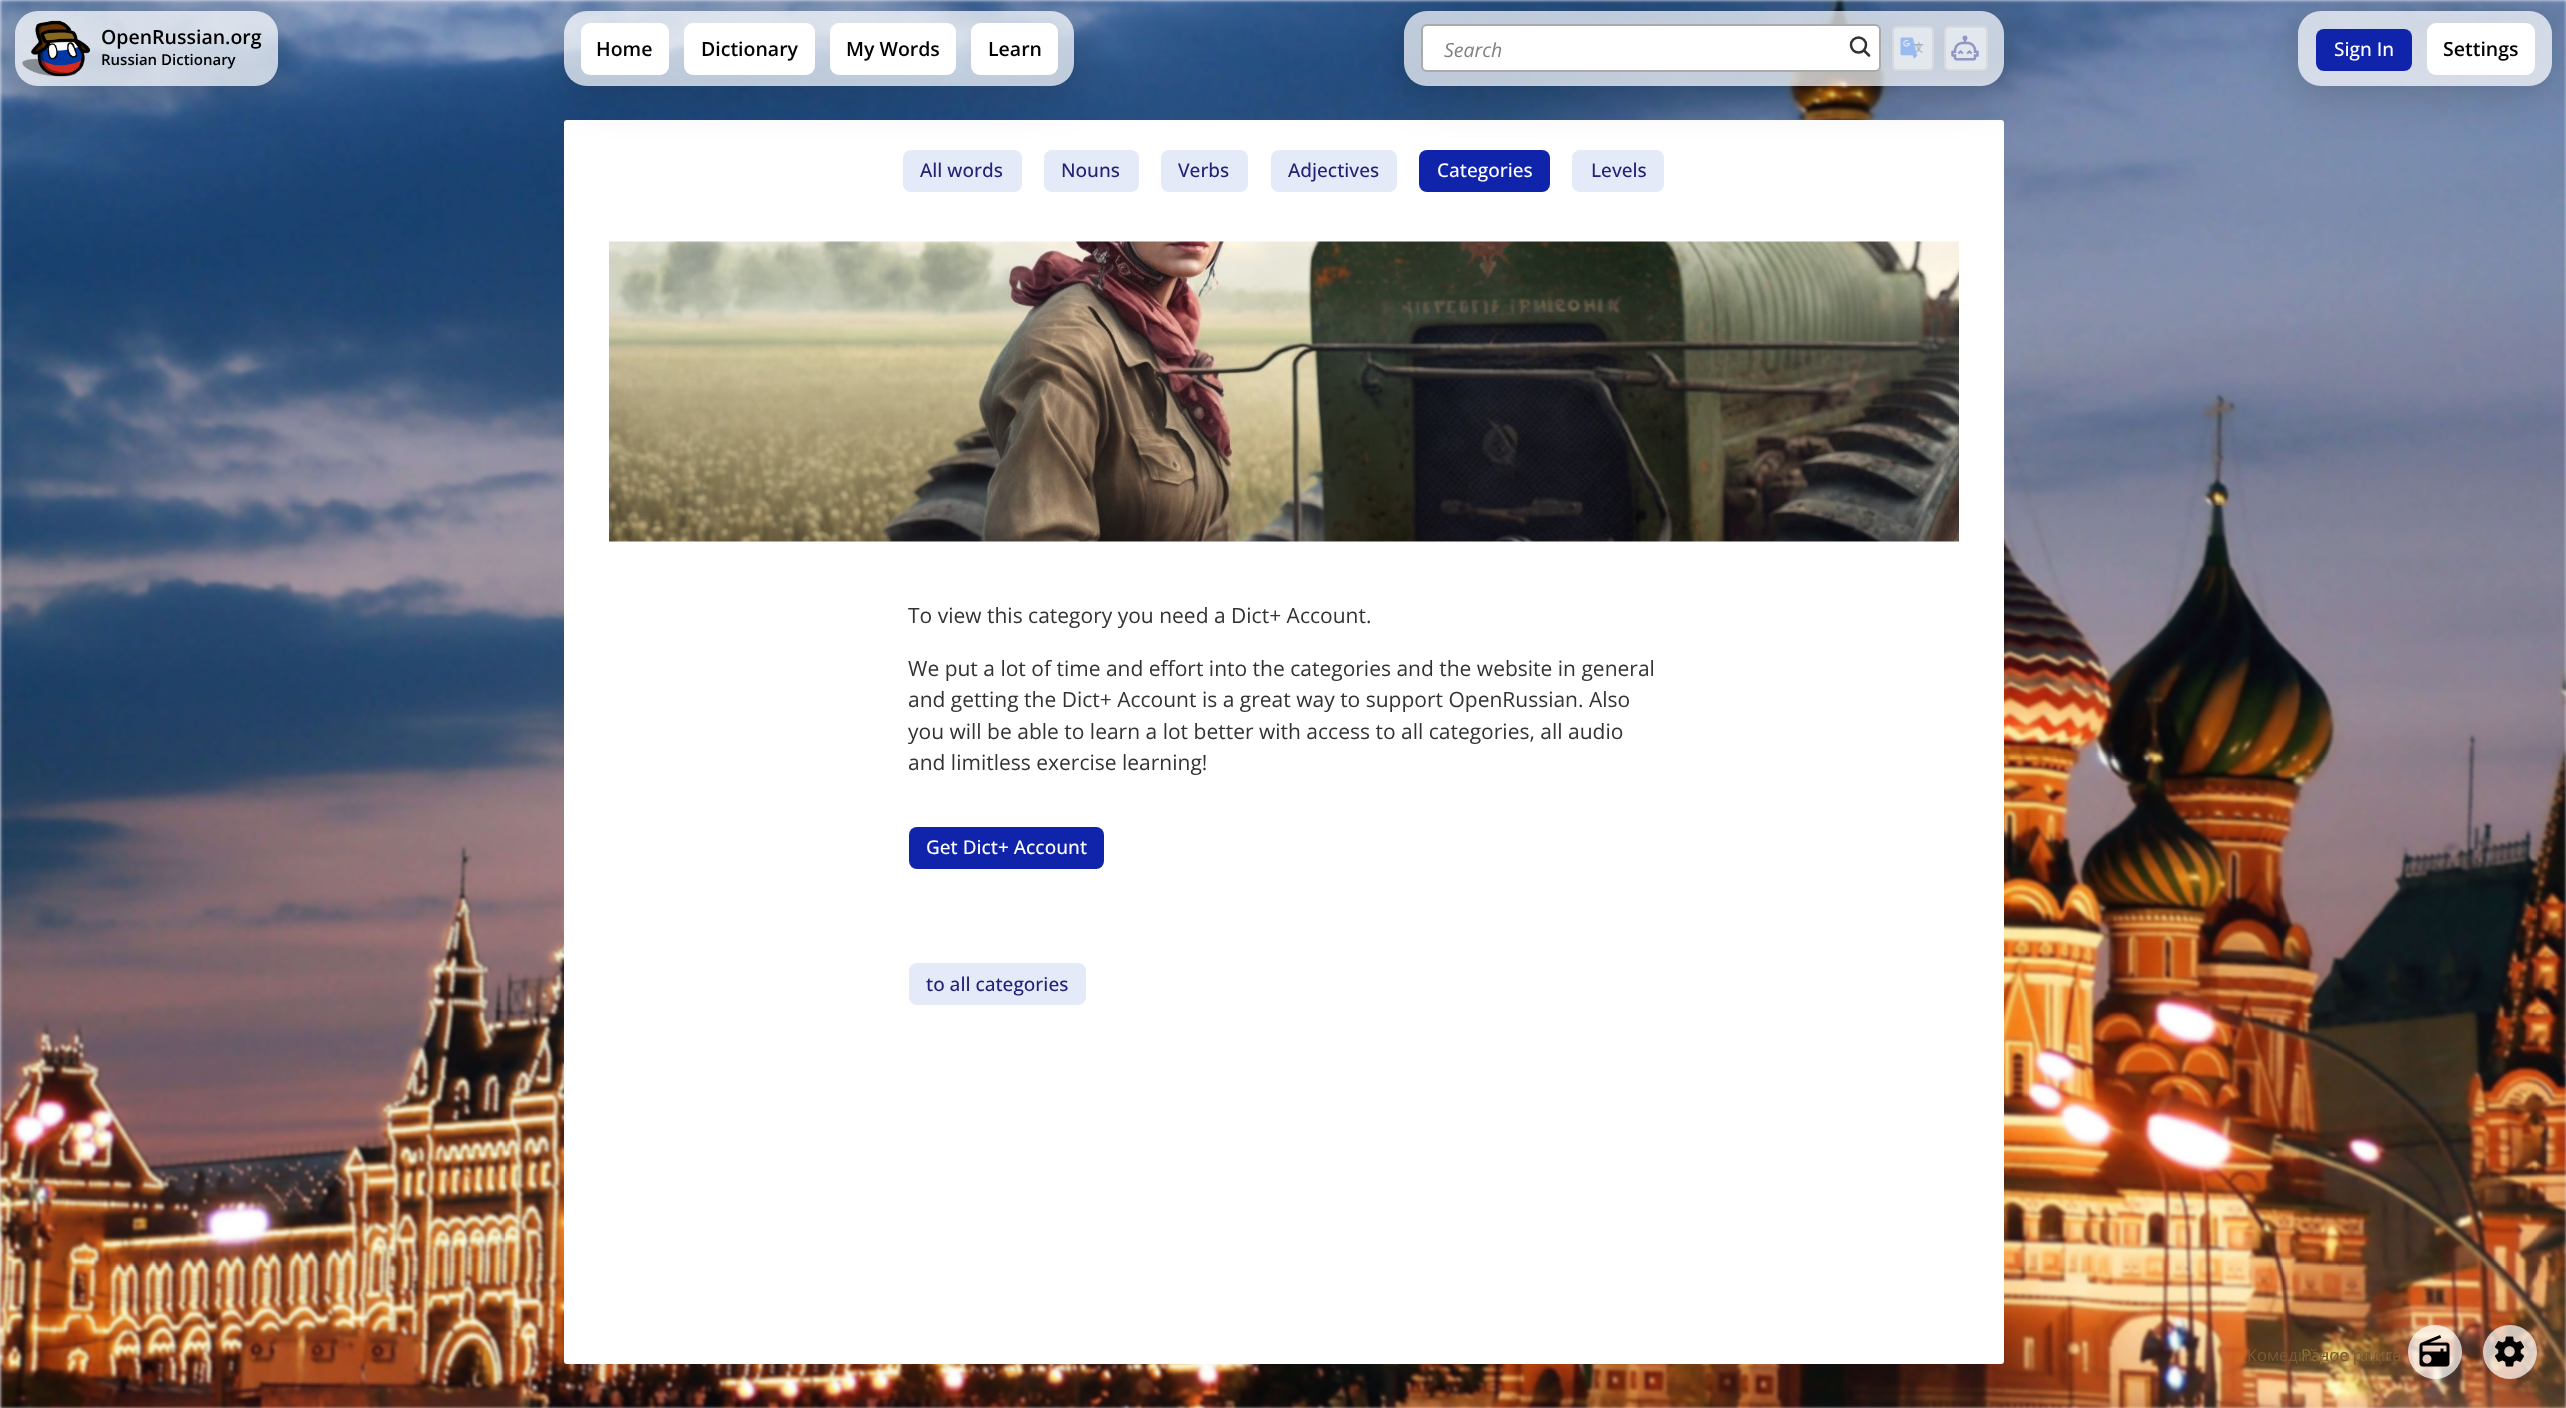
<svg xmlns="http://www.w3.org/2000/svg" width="2566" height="1408">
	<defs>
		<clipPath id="clip1"><path d="M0 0H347V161H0ZM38 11H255C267.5 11 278 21.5 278 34V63C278 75.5 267.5 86 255 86H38C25.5 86 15 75.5 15 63V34C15 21.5 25.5 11 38 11Z" clip-rule="evenodd" /></clipPath>
		<clipPath id="clip2"><path d="M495 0H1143V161H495ZM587 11H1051C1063.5 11 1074 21.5 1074 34V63C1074 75.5 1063.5 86 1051 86H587C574.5 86 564 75.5 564 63V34C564 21.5 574.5 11 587 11Z" clip-rule="evenodd" /></clipPath>
		<clipPath id="clip3"><path d="M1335 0H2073V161H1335ZM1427 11H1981C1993.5 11 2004 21.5 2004 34V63C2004 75.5 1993.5 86 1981 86H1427C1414.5 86 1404 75.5 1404 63V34C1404 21.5 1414.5 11 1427 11Z" clip-rule="evenodd" /></clipPath>
		<clipPath id="clip4"><path d="M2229 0H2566V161H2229ZM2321 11H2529C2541.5 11 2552 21.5 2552 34V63C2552 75.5 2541.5 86 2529 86H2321C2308.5 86 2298 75.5 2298 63V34C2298 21.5 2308.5 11 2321 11Z" clip-rule="evenodd" /></clipPath>
		<clipPath id="clip5"><path d="M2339 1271H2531V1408H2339ZM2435 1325C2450 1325 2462 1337 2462 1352C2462 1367 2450 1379 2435 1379C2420 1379 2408 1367 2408 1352C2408 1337 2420 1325 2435 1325Z" clip-rule="evenodd" /></clipPath>
		<clipPath id="clip6"><path d="M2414 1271H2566V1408H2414ZM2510 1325C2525 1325 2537 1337 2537 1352C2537 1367 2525 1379 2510 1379C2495 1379 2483 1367 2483 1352C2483 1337 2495 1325 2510 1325Z" clip-rule="evenodd" /></clipPath>
	</defs>
	<rect width="100%" height="100%" fill="#EEEEFF" />
	<image x="0" y="0" width="2566" height="1408" href="assets/img1.png" />
	<g clip-path="url(#clip1)">
		<rect x="15" y="17" width="263" height="75" rx="23" fill="#000000" fill-opacity="0.2" filter="blur(22.5px)" />
	</g>
	<rect x="15" y="11" width="263" height="75" rx="23" fill="#FFFFFF" fill-opacity="0.7" />
	<rect x="16" y="12" width="261" height="73" rx="22" fill="none" stroke="#D7D7FF" stroke-opacity="0.1" stroke-width="2" />
	<image x="22" y="20" width="68" height="57" href="assets/img2.png" />
	<text x="101" y="44" font-family="Open Sans" font-size="19.5" font-weight="600" fill="#000000">OpenRussian.org</text>
	<text x="101" y="65" font-family="Open Sans" font-size="15" font-weight="600" fill="#000000">Russian Dictionary</text>
	<rect x="564" y="120" width="1440" height="1244" rx="3" fill="#FFFFFF" />
	<rect x="903" y="150" width="119" height="42" rx="8" fill="#E4EAF7" />
	<rect x="1044" y="150" width="95" height="42" rx="8" fill="#E4EAF7" />
	<g clip-path="url(#clip2)">
		<rect x="564" y="17" width="510" height="75" rx="23" fill="#000000" fill-opacity="0.2" filter="blur(22.5px)" />
	</g>
	<rect x="564" y="11" width="510" height="75" rx="23" fill="#FFFFFF" fill-opacity="0.7" />
	<rect x="565" y="12" width="508" height="73" rx="22" fill="none" stroke="#D7D7FF" stroke-opacity="0.1" stroke-width="2" />
	<rect x="581" y="23" width="88" height="52" rx="9" fill="#FFFFFF" />
	<text x="596" y="56" font-family="Open Sans" font-size="19.5" font-weight="600" fill="#000000">Home</text>
	<rect x="684" y="23" width="131" height="52" rx="9" fill="#FFFFFF" />
	<text x="701" y="56" font-family="Open Sans" font-size="19.5" font-weight="600" fill="#000000">Dictionary</text>
	<rect x="830" y="23" width="126" height="52" rx="9" fill="#FFFFFF" />
	<text x="846" y="56" font-family="Open Sans" font-size="19.5" font-weight="600" fill="#000000">My Words</text>
	<rect x="971" y="23" width="87" height="52" rx="9" fill="#FFFFFF" />
	<text x="988" y="56" font-family="Open Sans" font-size="19.5" font-weight="600" fill="#000000">Learn</text>
	<rect x="1271" y="150" width="126" height="42" rx="8" fill="#E4EAF7" />
	<rect x="1419" y="150" width="131" height="42" rx="8" fill="#1023AB" />
	<rect x="1572" y="150" width="92" height="42" rx="8" fill="#E4EAF7" />
	<g clip-path="url(#clip3)">
		<rect x="1404" y="17" width="600" height="75" rx="23" fill="#000000" fill-opacity="0.2" filter="blur(22.5px)" />
	</g>
	<rect x="1404" y="11" width="600" height="75" rx="23" fill="#FFFFFF" fill-opacity="0.7" />
	<rect x="1405" y="12" width="598" height="73" rx="22" fill="none" stroke="#D7D7FF" stroke-opacity="0.1" stroke-width="2" />
	<rect x="1422" y="25" width="458" height="46" rx="5" fill="#FFFFFF" stroke="#AAAAAA" stroke-width="2" />
	<text x="1444" y="57" font-family="Open Sans" font-size="19.5" font-style="italic" fill="#808080">Search</text>
	<circle cx="1858.5" cy="45" r="7.5" fill="none" stroke="#333333" stroke-width="2.5" />
	<path d="M1869 55.5L1864.5 51" fill="none" stroke="#333333" stroke-width="2.5" stroke-linecap="round" stroke-linejoin="round" />
	<rect x="1892" y="26" width="42" height="45" rx="5" fill="#FFFFFF" fill-opacity="0.5" />
	<rect x="1893" y="27" width="40" height="43" rx="4" fill="none" stroke="#CCCCCC" stroke-opacity="0.5" stroke-width="2" />
	<image x="1900" y="37" width="24" height="22" href="assets/img3.png" />
	<rect x="1944" y="26" width="44" height="45" rx="5" fill="#FFFFFF" fill-opacity="0.5" />
	<rect x="1945" y="27" width="42" height="43" rx="4" fill="none" stroke="#CCCCCC" stroke-opacity="0.5" stroke-width="2" />
	<image x="1951" y="35" width="28" height="26" href="assets/img4.png" />
	<g clip-path="url(#clip4)">
		<rect x="2298" y="17" width="254" height="75" rx="23" fill="#000000" fill-opacity="0.2" filter="blur(22.5px)" />
	</g>
	<rect x="2298" y="11" width="254" height="75" rx="23" fill="#FFFFFF" fill-opacity="0.7" />
	<rect x="2299" y="12" width="252" height="73" rx="22" fill="none" stroke="#D7D7FF" stroke-opacity="0.1" stroke-width="2" />
	<rect x="2316" y="29" width="96" height="42" rx="8" fill="#1023AB" />
	<text x="2334" y="56" font-family="Open Sans" font-size="19" font-weight="500" fill="#FFFFFF">Sign In</text>
	<rect x="2427" y="23" width="108" height="52" rx="9" fill="#FFFFFF" />
	<text x="2443" y="56" font-family="Open Sans" font-size="19.5" font-weight="600" fill="#000000">Settings</text>
	<g font-family="Open Sans" font-size="19" font-weight="500" fill="#222277">
		<text x="920" y="177">All words</text>
		<text x="1061" y="177">Nouns</text>
	</g>
	<rect x="1161" y="150" width="87" height="42" rx="8" fill="#E4EAF7" />
	<g font-family="Open Sans" font-size="19" font-weight="500" fill="#222277">
		<text x="1178" y="177">Verbs</text>
		<text x="1288" y="177">Adjectives</text>
	</g>
	<text x="1437" y="177" font-family="Open Sans" font-size="19" font-weight="500" fill="#FFFFFF">Categories</text>
	<text x="1591" y="177" font-family="Open Sans" font-size="19" font-weight="500" fill="#222277">Levels</text>
	<image x="609" y="241" width="1350" height="301" href="assets/img5.png" />
	<g font-family="Open Sans" font-size="21" fill="#333333">
		<text x="908" y="623">To view this category you need a Dict+ Account.</text>
		<text x="908" y="676">We put a lot of time and effort into the categories and the website in general</text>
		<text x="908" y="707">and getting the Dict+ Account is a great way to support OpenRussian. Also</text>
		<text x="908" y="739">you will be able to learn a lot better with access to all categories, all audio</text>
		<text x="908" y="770">and limitless exercise learning!</text>
	</g>
	<rect x="909" y="827" width="195" height="42" rx="8" fill="#1023AB" />
	<text x="926" y="854" font-family="Open Sans" font-size="19" font-weight="500" fill="#FFFFFF">Get Dict+ Account</text>
	<rect x="909" y="963" width="177" height="42" rx="8" fill="#E4EAF7" />
	<text x="926" y="991" font-family="Open Sans" font-size="19" font-weight="500" fill="#222277">to all categories</text>
	<text x="2301" y="1361" font-family="Open Sans" font-size="16.5" fill="#93703B">Радио Книга</text>
	<text x="2247" y="1361" font-family="Open Sans" font-size="16.5" fill="#7D5B30">Комедийное радио</text>
	<g clip-path="url(#clip5)">
		<rect x="2408" y="1340" width="54" height="54" rx="27" fill="#000000" fill-opacity="0.18" filter="blur(22.5px)" />
	</g>
	<circle cx="2435" cy="1352" r="27" fill="#FFFFFF" fill-opacity="0.7" />
	<circle cx="2435" cy="1352" r="26" fill="none" stroke="#D7D7FF" stroke-opacity="0.1" stroke-width="2" />
	<image x="2419" y="1335" width="31" height="32" href="assets/img6.png" />
	<g clip-path="url(#clip6)">
		<rect x="2483" y="1340" width="54" height="54" rx="27" fill="#000000" fill-opacity="0.18" filter="blur(22.5px)" />
	</g>
	<circle cx="2510" cy="1352" r="27" fill="#FFFFFF" fill-opacity="0.7" />
	<circle cx="2510" cy="1352" r="26" fill="none" stroke="#D7D7FF" stroke-opacity="0.1" stroke-width="2" />
	<image x="2495" y="1336" width="29" height="31" href="assets/img7.png" />
</svg>
